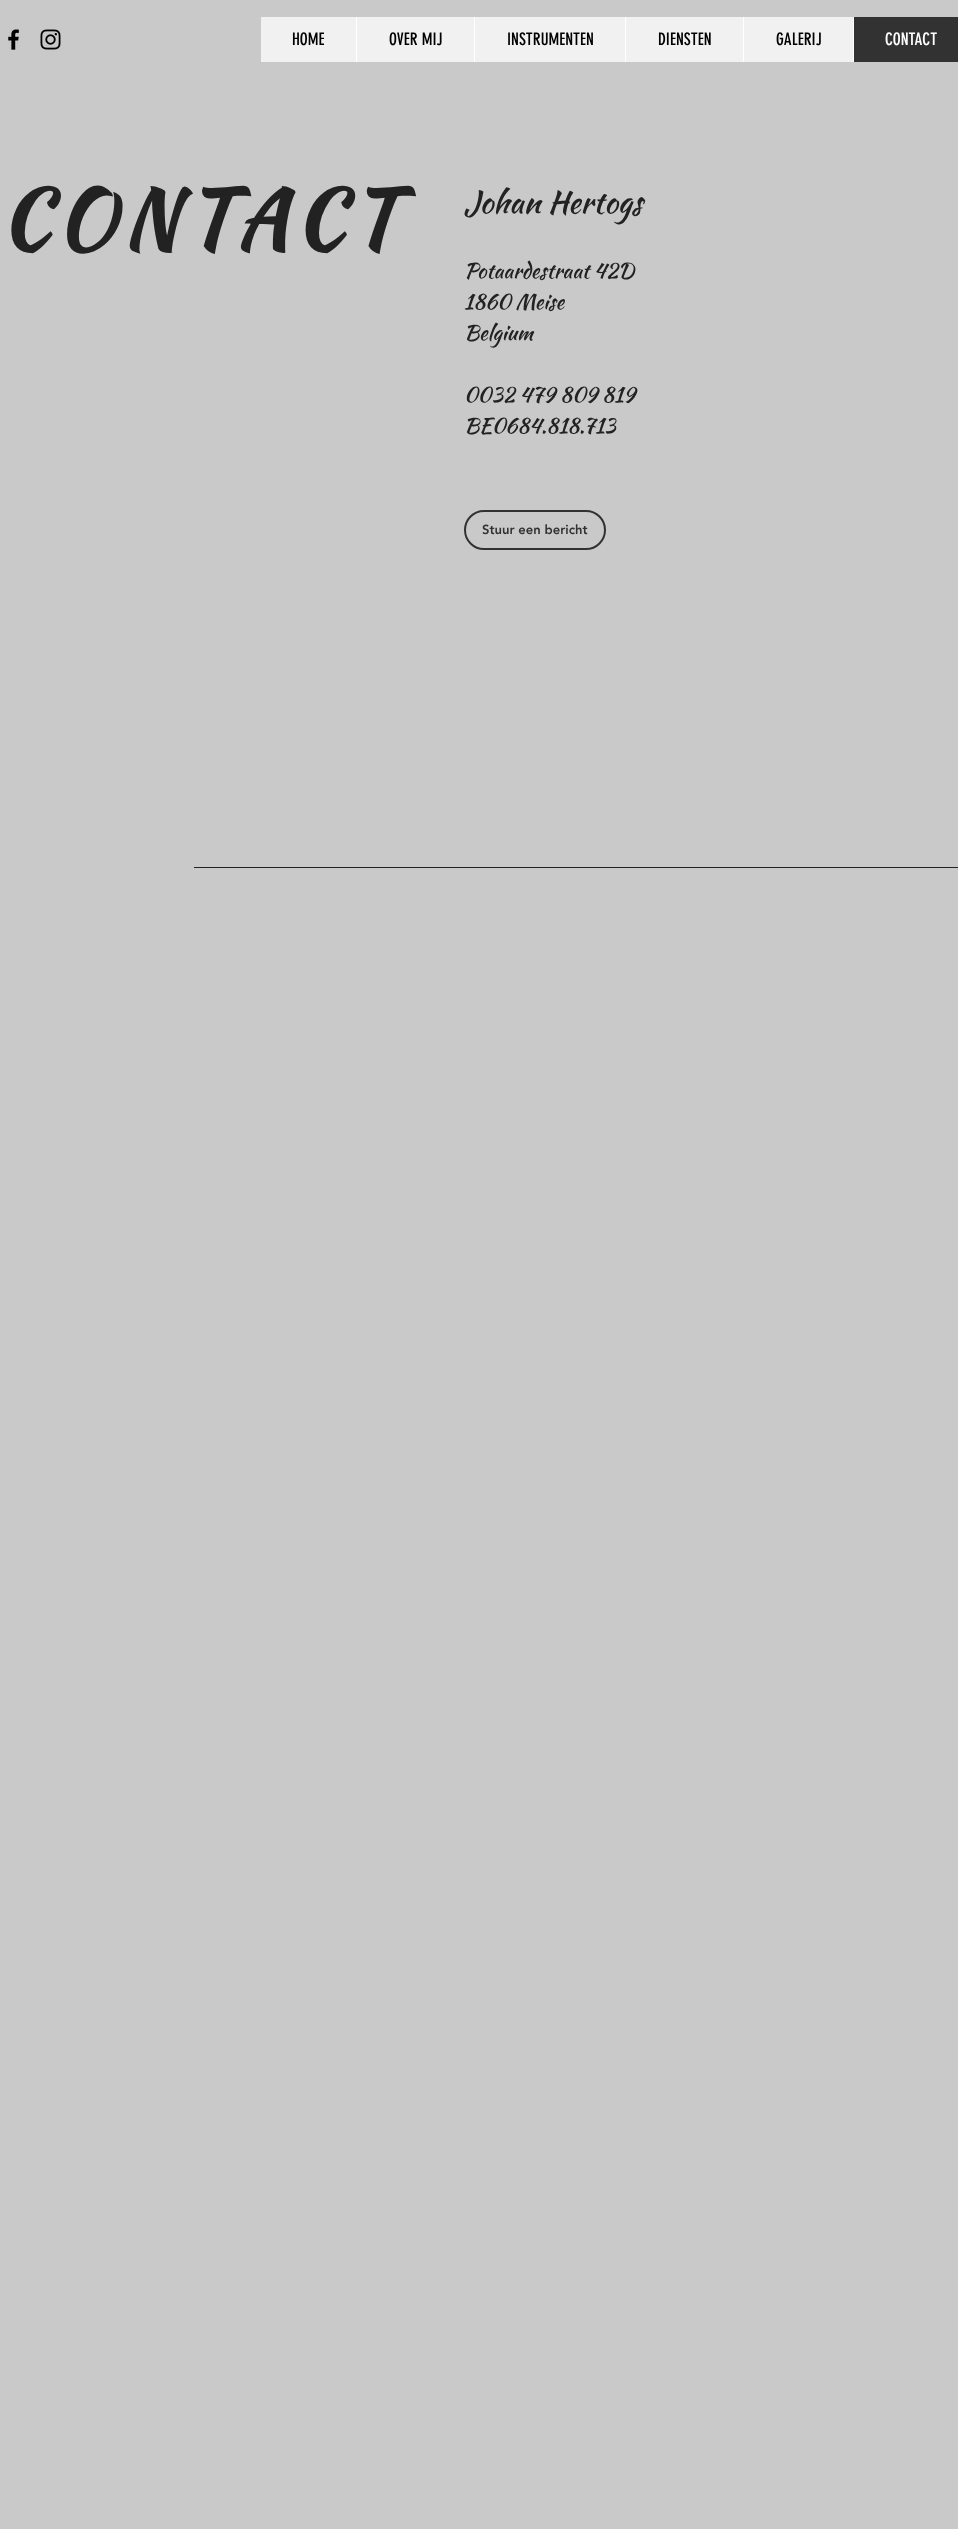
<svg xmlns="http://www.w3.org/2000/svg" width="958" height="2529">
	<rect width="100%" height="100%" fill="#C9C9C9" />
	<image x="8" y="29" width="11" height="21" href="assets/img1.png" />
	<image x="40" y="29" width="21" height="21" href="assets/img2.png" />
	<rect x="261" y="17" width="592" height="45" fill="#F1F1F1" />
	<text x="292" y="45" font-family="'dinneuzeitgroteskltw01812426'" font-size="17" fill="#000000">HOME</text>
	<rect x="356" y="17" width="1" height="45" fill="#FFFFFF" />
	<text x="389" y="45" font-family="'dinneuzeitgroteskltw01812426'" font-size="17" fill="#000000">OVER MIJ</text>
	<rect x="474" y="17" width="1" height="45" fill="#FFFFFF" />
	<text x="507" y="45" font-family="'dinneuzeitgroteskltw01812426'" font-size="17" fill="#000000">INSTRUMENTEN</text>
	<rect x="625" y="17" width="1" height="45" fill="#FFFFFF" />
	<text x="658" y="45" font-family="'dinneuzeitgroteskltw01812426'" font-size="17" fill="#000000">DIENSTEN</text>
	<rect x="743" y="17" width="1" height="45" fill="#FFFFFF" />
	<text x="776" y="45" font-family="'dinneuzeitgroteskltw01812426'" font-size="17" fill="#000000">GALERIJ</text>
	<rect x="854" y="17" width="104" height="45" fill="#323232" />
	<rect x="853" y="17" width="1" height="45" fill="#FFFFFF" />
	<text x="885" y="45" font-family="'dinneuzeitgroteskltw01812426'" font-size="17" fill="#FFFFFF">CONTACT</text>
	<text x="0" y="247" font-family="Kaushan Script" font-size="80" font-weight="700" letter-spacing="8" fill="#222222">CONTACT</text>
	<text x="464" y="213" font-family="Kaushan Script" font-size="31" fill="#222222">Johan Hertogs</text>
	<g font-family="Kaushan Script" font-size="21" fill="#222222">
		<text x="464" y="278">Potaardestraat 42D</text>
		<text x="464" y="309">1860 Meise</text>
		<text x="464" y="340">Belgium</text>
		<text x="464" y="402">0032 479 809 819</text>
		<text x="464" y="433">BE0684.818.713</text>
	</g>
	<rect x="465" y="511" width="140" height="38" rx="19" fill="none" stroke="#323232" stroke-width="2" />
	<text x="482" y="534" font-family="'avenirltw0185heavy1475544'" font-size="13" font-weight="900" fill="#323232">Stuur een bericht</text>
	<rect x="194" y="867" width="764" height="1" fill="#222222" />
</svg>
